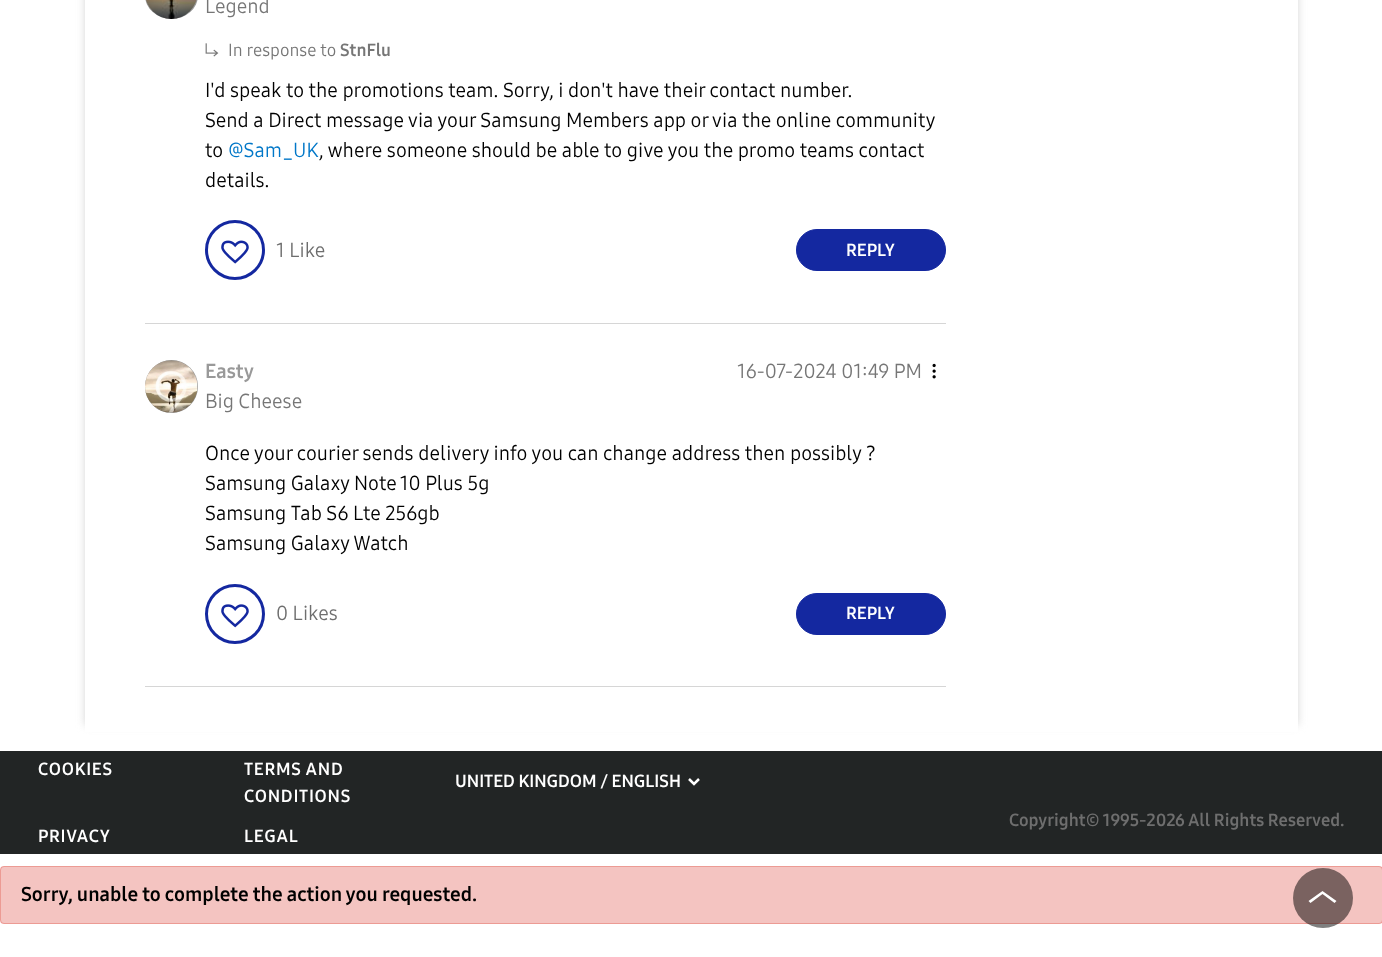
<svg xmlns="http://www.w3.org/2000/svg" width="1382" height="957">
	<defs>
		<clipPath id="clip1"><path d="M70 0H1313V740H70ZM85-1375H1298V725H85Z" clip-rule="evenodd" /></clipPath>
	</defs>
	<rect width="100%" height="100%" fill="#FFFFFF" />
	<g clip-path="url(#clip1)">
		<rect x="85" y="-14" width="1213" height="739" fill="#D6D6D6" filter="blur(4.5px)" />
	</g>
	<rect x="145" y="-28" width="53" height="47" rx="26.5" fill="#999999" filter="blur(0.5px)" />
	<image x="146" y="0" width="51" height="19" href="assets/img1.png" />
	<text x="205" y="13" font-family="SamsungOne" font-size="20" fill="#767676">Legend</text>
	<image x="205" y="43" width="14" height="14" href="assets/img2.png" />
	<text x="228" y="56" font-family="SamsungOne" font-size="17.5" fill="#767676">In response to</text>
	<text x="340" y="56" font-family="SamsungOne" font-size="17.5" font-weight="700" fill="#767676">StnFlu</text>
	<g font-family="SamsungOne" font-size="20" fill="#000000">
		<text x="205" y="97">I'd speak to the promotions team. Sorry, i don't have their contact number.</text>
		<text x="205" y="127">Send a Direct message via your Samsung Members app or via the online community</text>
		<text x="205" y="157">to</text>
	</g>
	<text x="228" y="157" font-family="SamsungOne" font-size="20" fill="#0077C8">@Sam_UK</text>
	<g font-family="SamsungOne" font-size="20" fill="#000000">
		<text x="319" y="157">, where someone should be able to give you the promo teams contact</text>
		<text x="205" y="187">details.</text>
	</g>
	<circle cx="235" cy="250" r="28.5" fill="none" stroke="#1428A0" stroke-width="3" />
	<image x="221" y="240" width="28" height="24" href="assets/img3.png" />
	<text x="276" y="257" font-family="SamsungOne" font-size="20" fill="#6E6E6E">1 Like</text>
	<rect x="796.5" y="229.5" width="149" height="41" rx="20.5" fill="#1428A0" stroke="#1428A0" />
	<text x="846" y="256" font-family="SamsungOne" font-size="17.5" font-weight="700" fill="#FFFFFF">REPLY</text>
	<rect x="145" y="323" width="801" height="1" fill="#D6D6D6" />
	<rect x="145" y="686" width="801" height="1" fill="#D6D6D6" />
	<rect x="145" y="360" width="53" height="53" rx="26.5" fill="#999999" filter="blur(0.5px)" />
	<image x="145" y="360" width="53" height="53" href="assets/img4.png" />
	<text x="205" y="378" font-family="SamsungOne" font-size="20" font-weight="700" fill="#999999">Easty</text>
	<g font-family="SamsungOne" font-size="20" fill="#767676">
		<text x="205" y="408">Big Cheese</text>
		<text x="737" y="378">16-07-2024 01:49 PM</text>
	</g>
	<image x="932" y="363" width="4" height="16" href="assets/img5.png" />
	<g font-family="SamsungOne" font-size="20" fill="#000000">
		<text x="205" y="460">Once your courier sends delivery info you can change address then possibly ?</text>
		<text x="205" y="490">Samsung Galaxy Note 10 Plus 5g</text>
		<text x="205" y="520">Samsung Tab S6 Lte 256gb</text>
		<text x="205" y="550">Samsung Galaxy Watch</text>
	</g>
	<circle cx="235" cy="614" r="28.5" fill="none" stroke="#1428A0" stroke-width="3" />
	<image x="221" y="604" width="28" height="24" href="assets/img6.png" />
	<text x="276" y="620" font-family="SamsungOne" font-size="20" fill="#6E6E6E">0 Likes</text>
	<rect x="796.5" y="593.5" width="149" height="41" rx="20.5" fill="#1428A0" stroke="#1428A0" />
	<text x="846" y="619" font-family="SamsungOne" font-size="17.5" font-weight="700" fill="#FFFFFF">REPLY</text>
	<rect x="85" y="725" width="1213" height="7" fill="#FFFFFF" />
	<rect x="0" y="866" width="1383" height="58" rx="4" fill="#F4C4C1" />
	<rect x="0.5" y="866.5" width="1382" height="57" rx="3.5" fill="none" stroke="#D93B30" stroke-opacity="0.3" />
	<circle cx="1323" cy="898" r="30" fill="#000000" fill-opacity="0.5" />
	<path d="M1322.5 891L1336.5 901L1334.5 903L1322.5 894L1310.5 903L1308.5 901Z" fill="#FFFFFF" />
	<rect x="0" y="751" width="1382" height="103" fill="#222525" />
	<g font-family="SamsungOne" font-size="17.5" font-weight="700" letter-spacing="0.75" fill="#FFFFFF">
		<text x="38" y="775">COOKIES</text>
		<text x="244" y="775">TERMS AND</text>
		<text x="244" y="802">CONDITIONS</text>
		<text x="38" y="842">PRIVACY</text>
		<text x="244" y="842">LEGAL</text>
	</g>
	<path d="M689 779L694 784L699 779" fill="none" stroke="#FFFFFF" stroke-width="2.5" />
	<text x="455" y="787" font-family="SamsungOne" font-size="17.5" font-weight="700" fill="#FFFFFF">UNITED KINGDOM / ENGLISH</text>
	<text x="1009" y="826" font-family="SamsungOne" font-size="17.5" font-weight="700" fill="#6E6E6E">Copyright© 1995-2026 All Rights Reserved.</text>
	<text x="21" y="901" font-family="SamsungOne" font-size="20" font-weight="700" fill="#000000">Sorry, unable to complete the action you requested.</text>
</svg>
